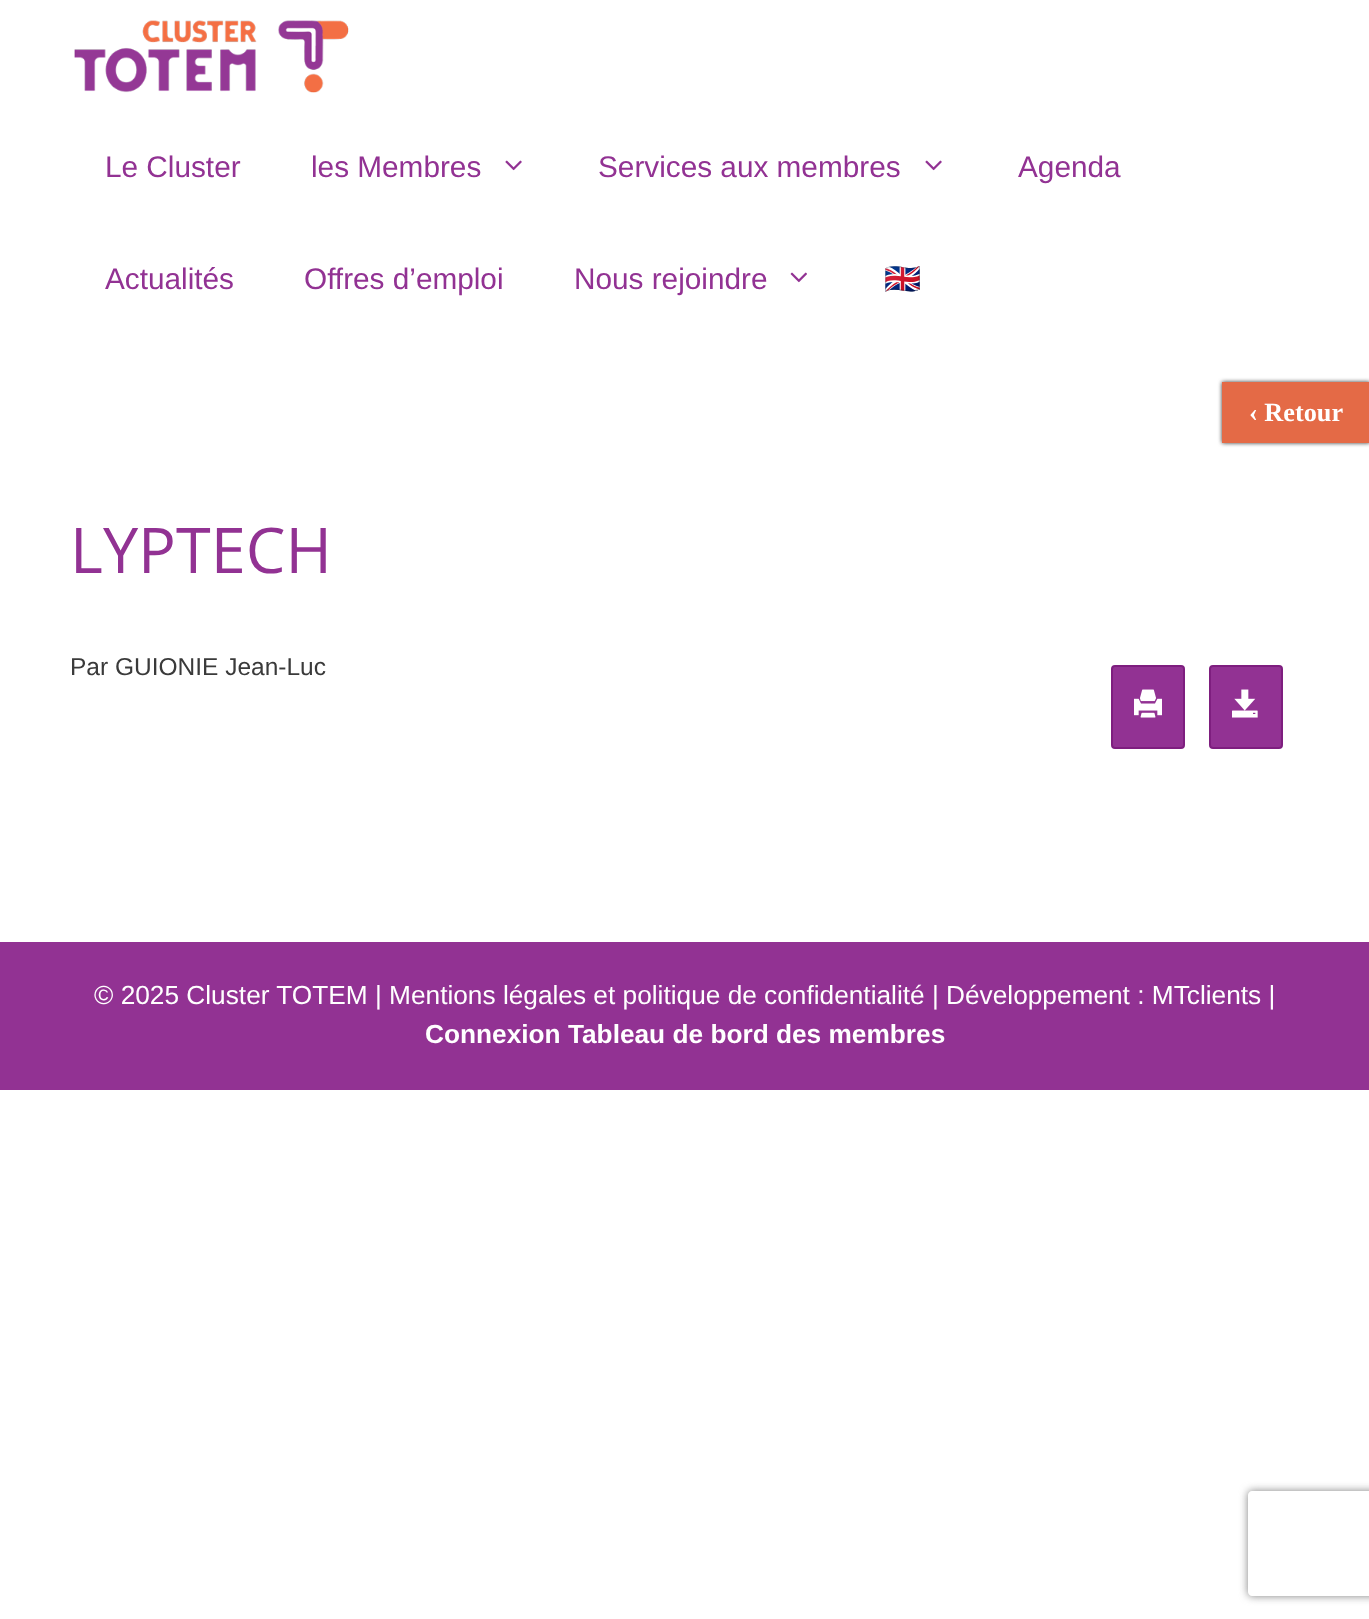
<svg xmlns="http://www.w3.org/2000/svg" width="1369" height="1619">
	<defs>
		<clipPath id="clip1"><path d="M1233 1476H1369V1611H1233ZM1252 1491H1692C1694 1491 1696 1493 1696 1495V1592C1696 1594 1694 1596 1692 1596H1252C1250 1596 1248 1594 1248 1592V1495C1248 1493 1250 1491 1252 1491Z" clip-rule="evenodd" /></clipPath>
	</defs>
	<rect width="100%" height="100%" fill="#FFFFFF" />
	<image x="74" y="20" width="275" height="73" href="assets/img1.png" />
	<g font-family="Liberation Sans" font-size="29.75" fill="#923293">
		<text x="105" y="177">Le Cluster</text>
		<text x="311" y="177">les Membres</text>
	</g>
	<image x="505" y="160" width="17" height="11" href="assets/img2.png" />
	<text x="598" y="177" font-family="Liberation Sans" font-size="29.75" fill="#923293">Services aux membres</text>
	<image x="925" y="160" width="17" height="11" href="assets/img2.png" />
	<g font-family="Liberation Sans" font-size="29.75" fill="#923293">
		<text x="1018" y="177">Agenda</text>
		<text x="105" y="289">Actualités</text>
		<text x="304" y="289">Offres d’emploi</text>
		<text x="574" y="289">Nous rejoindre</text>
	</g>
	<image x="790" y="272" width="17" height="11" href="assets/img3.png" />
	<text x="884" y="289" font-family="Noto Color Emoji" font-size="29.75" fill="#923293">🇬🇧</text>
	<rect x="1222" y="382" width="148" height="61" fill="#333333" filter="blur(2px)" />
	<rect x="1222" y="382" width="147" height="61" fill="#E46A46" />
	<text x="1249" y="421" font-family="Liberation Serif" font-size="26.25" font-weight="700" fill="#FFFFFF">‹ Retour</text>
	<text x="70" y="573" font-family="Open Sans" font-size="63" fill="#923293">LYPTECH</text>
	<text x="70" y="675" font-family="Liberation Sans" font-size="24.5" fill="#3A3A3A">Par GUIONIE Jean-Luc</text>
	<rect x="1112" y="666" width="72" height="82" rx="3" fill="#923293" stroke="#7E1E7F" stroke-width="2" />
	<image x="1134" y="689" width="28" height="29" href="assets/img4.png" />
	<rect x="1210" y="666" width="72" height="82" rx="3" fill="#923293" stroke="#7E1E7F" stroke-width="2" />
	<image x="1232" y="689" width="26" height="29" href="assets/img5.png" />
	<rect x="0" y="942" width="1369" height="148" fill="#923293" />
	<text x="94" y="1004" font-family="Liberation Sans" font-size="26.25" fill="#FFFFFF">© 2025 Cluster TOTEM | Mentions légales et politique de confidentialité | Développement : MTclients |</text>
	<text x="425" y="1043" font-family="Liberation Sans" font-size="26.25" font-weight="700" fill="#FFFFFF">Connexion Tableau de bord des membres</text>
	<g clip-path="url(#clip1)">
		<rect x="1248" y="1491" width="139" height="105" rx="4" fill="#808080" filter="blur(4.5px)" />
	</g>
</svg>
